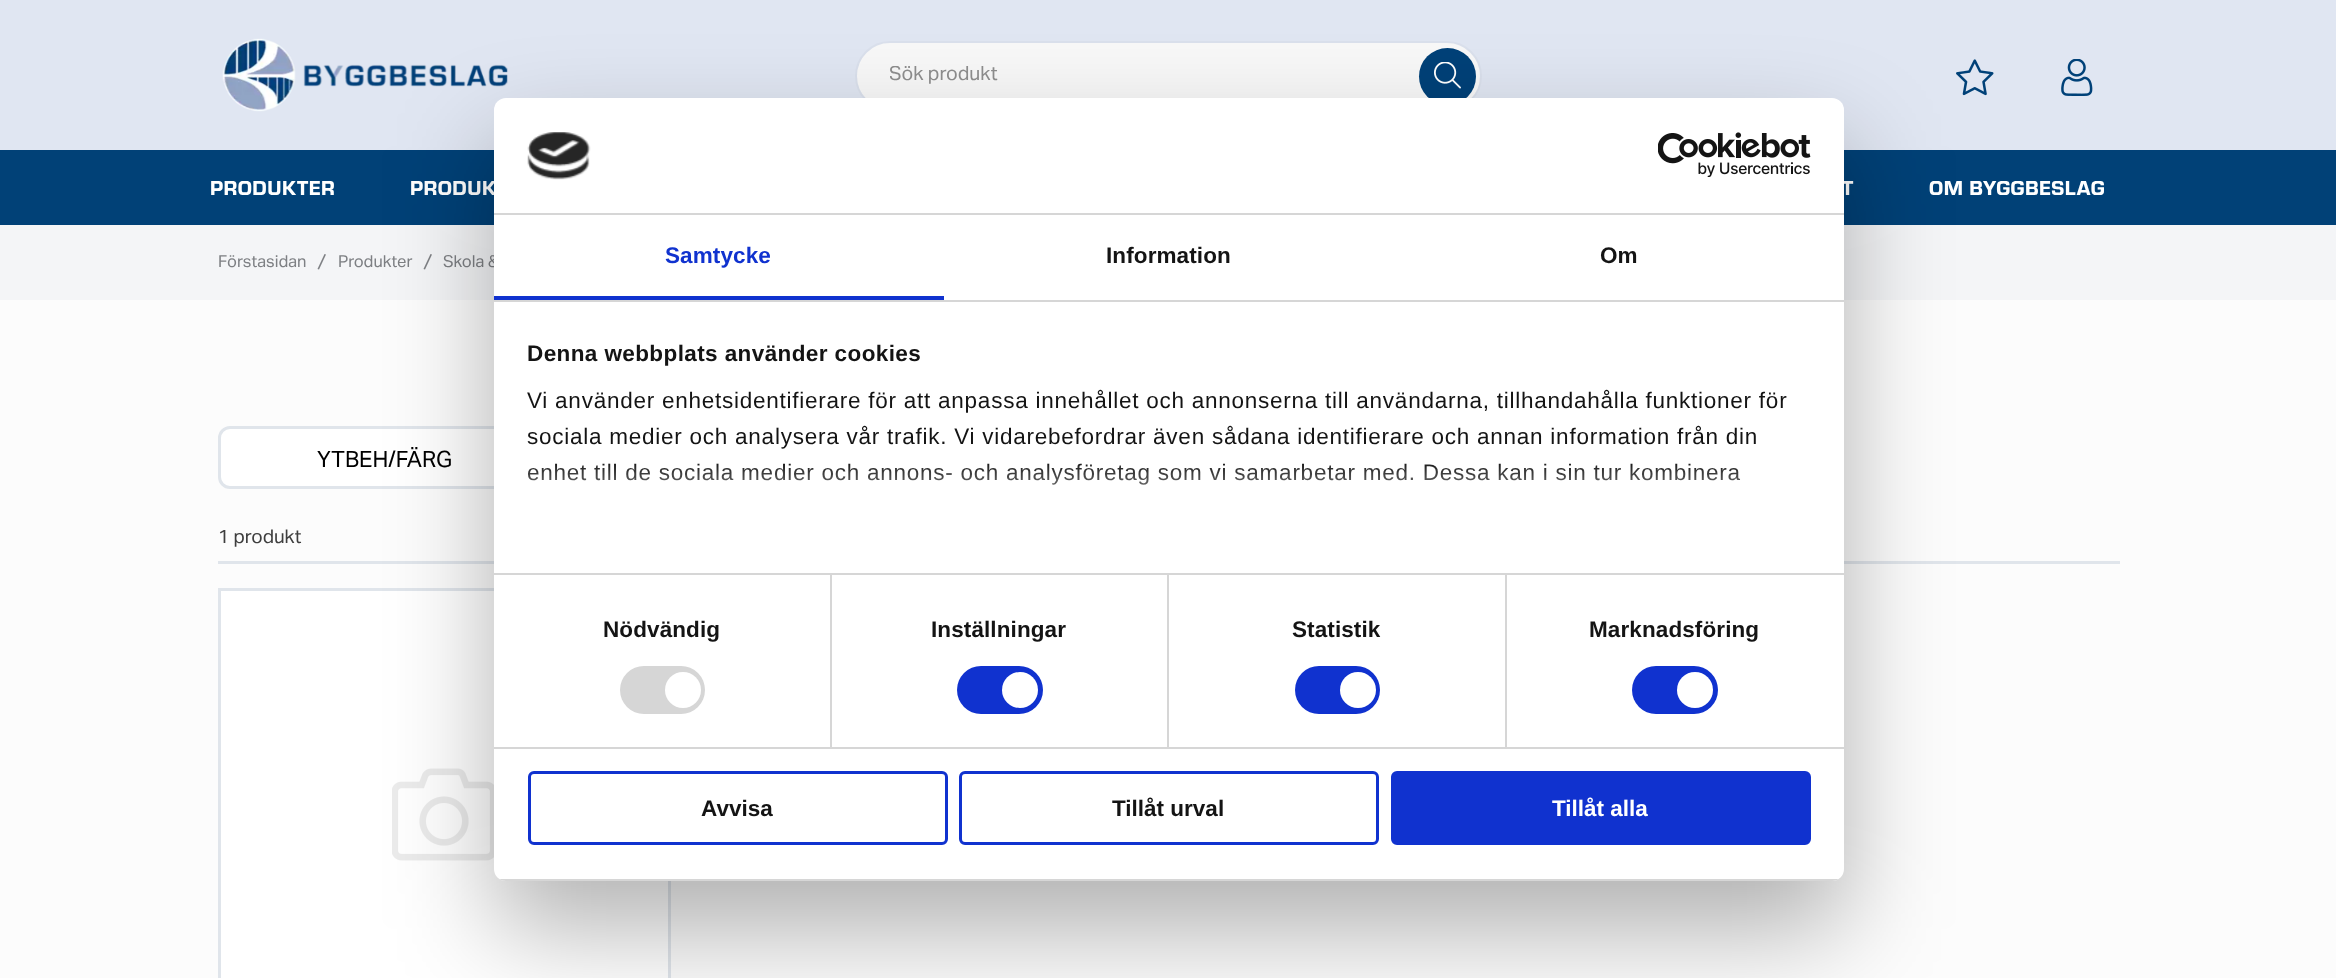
<svg xmlns="http://www.w3.org/2000/svg" width="2336" height="978">
	<defs>
		<clipPath id="clip1"><rect x="890" y="66" width="520" height="20" /></clipPath>
		<linearGradient id="g1" gradientUnits="userSpaceOnUse" x1="1154" y1="573" x2="1154" y2="461"><stop offset="0" stop-color="#FFFFFF" /><stop offset="0.5" stop-color="#FFFFFF" stop-opacity="0.8" /><stop offset="1" stop-color="#FFFFFF" stop-opacity="0" /></linearGradient>
		<clipPath id="clip2"><rect x="494" y="98" width="1350" height="783" rx="12" /></clipPath>
	</defs>
	<rect width="100%" height="100%" fill="#FCFCFC" />
	<rect x="0" y="0" width="2336" height="150" fill="#E0E6F2" />
	<image x="222" y="38" width="286" height="74" href="assets/img1.png" />
	<rect x="856" y="42" width="625" height="68" rx="34" fill="#F8F8F8" stroke="#DAE0EC" stroke-width="2" />
	<g clip-path="url(#clip1)">
		<text x="889" y="80" font-family="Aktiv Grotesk" font-size="19.5" fill="#8E8E8E">Sök produkt</text>
	</g>
	<circle cx="1447.5" cy="76.5" r="28.5" fill="#004178" />
	<image x="1434" y="62" width="27" height="27" href="assets/img2.png" />
	<image x="1956" y="59" width="38" height="37" href="assets/img3.png" />
	<image x="2061" y="59" width="32" height="37" href="assets/img4.png" />
	<rect x="0" y="150" width="2336" height="75" fill="#014177" />
	<g font-family="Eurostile" font-size="21" font-weight="900" letter-spacing="0.5" fill="#FFFFFF">
		<text x="210" y="195">PRODUKTER</text>
		<text x="410" y="195">PRODUK</text>
		<text x="1842" y="195">T</text>
		<text x="1929" y="195">OM BYGGBESLAG</text>
	</g>
	<rect x="0" y="225" width="2336" height="75" fill="#F4F5F7" />
	<text x="218" y="267" font-family="Aktiv Grotesk" font-size="16.5" fill="#7E8084">Förstasidan</text>
	<path d="M324.5 254L326 254.5L319 269.5L317.5 269Z" fill="#7E8084" />
	<text x="338" y="267" font-family="Aktiv Grotesk" font-size="16.5" fill="#7E8084">Produkter</text>
	<path d="M430.5 254L432 254.5L425 269.5L423.5 269Z" fill="#7E8084" />
	<text x="443" y="267" font-family="Aktiv Grotesk" font-size="16.5" fill="#7E8084">Skola &amp;</text>
	<rect x="219.5" y="427.5" width="354" height="60" rx="10.5" fill="#FFFFFF" stroke="#E0E5EB" stroke-width="3" />
	<text x="317" y="467" font-family="Aktiv Grotesk" font-size="22.5" fill="#000000">YTBEH/FÄRG</text>
	<text x="218" y="543" font-family="Aktiv Grotesk" font-size="19" fill="#3E3E3E">1 produkt</text>
	<rect x="218" y="561" width="1902" height="3" fill="#E0E5EB" />
	<rect x="219.5" y="589.5" width="450" height="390" fill="#FFFFFF" stroke="#E0E5EB" stroke-width="3" />
	<image x="392" y="768" width="102" height="93" href="assets/img5.png" />
	<rect x="494" y="146" width="1350" height="783" rx="12" fill="#000000" fill-opacity="0.3" filter="blur(51px)" />
	<rect x="494" y="98" width="1350" height="783" rx="12" fill="#FFFFFF" />
	<rect x="494" y="213" width="1350" height="2" fill="#D6D6D6" />
	<image x="527" y="132" width="64" height="48" href="assets/img6.png" />
	<image x="1658" y="132" width="153" height="45" href="assets/img7.png" />
	<rect x="494" y="300" width="1350" height="2" fill="#D6D6D6" />
	<rect x="494" y="296" width="450" height="4" fill="#1032CF" />
	<text x="665" y="263" font-family="Liberation Sans" font-size="22.5" font-weight="700" letter-spacing="0.1" fill="#1032CF">Samtycke</text>
	<g font-family="Liberation Sans" font-size="22.5" font-weight="700" letter-spacing="0.1" fill="#141414">
		<text x="1106" y="263">Information</text>
		<text x="1600" y="263">Om</text>
	</g>
	<rect x="494" y="573" width="1350" height="2" fill="#D6D6D6" />
	<text x="527" y="361" font-family="Liberation Sans" font-size="22.5" font-weight="700" letter-spacing="0.4" fill="#141414">Denna webbplats använder cookies</text>
	<g font-family="Liberation Sans" font-size="22.5" letter-spacing="0.75" fill="#141414">
		<text x="527" y="408">Vi använder enhetsidentifierare för att anpassa innehållet och annonserna till användarna, tillhandahålla funktioner för</text>
		<text x="527" y="444">sociala medier och analysera vår trafik. Vi vidarebefordrar även sådana identifierare och annan information från din</text>
		<text x="527" y="480">enhet till de sociala medier och annons- och analysföretag som vi samarbetar med. Dessa kan i sin tur kombinera</text>
	</g>
	<rect x="528" y="463" width="1213" height="22" fill="url(#g1)" />
	<rect x="494" y="747" width="1350" height="2" fill="#D6D6D6" />
	<rect x="830" y="575" width="2" height="172" fill="#D6D6D6" />
	<text x="603" y="637" font-family="Liberation Sans" font-size="22.5" font-weight="700" letter-spacing="0.1" fill="#141414">Nödvändig</text>
	<rect x="620" y="666" width="85" height="48" rx="24" fill="#D6D6D6" />
	<circle cx="683" cy="690" r="18" fill="#FFFFFF" />
	<rect x="1167" y="575" width="2" height="172" fill="#D6D6D6" />
	<text x="931" y="637" font-family="Liberation Sans" font-size="22.5" font-weight="700" letter-spacing="0.1" fill="#141414">Inställningar</text>
	<rect x="957" y="666" width="86" height="48" rx="24" fill="#1032CF" />
	<circle cx="1020" cy="690" r="18" fill="#FFFFFF" />
	<rect x="1505" y="575" width="2" height="172" fill="#D6D6D6" />
	<text x="1292" y="637" font-family="Liberation Sans" font-size="22.5" font-weight="700" letter-spacing="0.1" fill="#141414">Statistik</text>
	<rect x="1295" y="666" width="85" height="48" rx="24" fill="#1032CF" />
	<circle cx="1358" cy="690" r="18" fill="#FFFFFF" />
	<text x="1589" y="637" font-family="Liberation Sans" font-size="22.5" font-weight="700" letter-spacing="0.1" fill="#141414">Marknadsföring</text>
	<rect x="1632" y="666" width="86" height="48" rx="24" fill="#1032CF" />
	<circle cx="1695" cy="690" r="18" fill="#FFFFFF" />
	<g clip-path="url(#clip2)">
		<rect x="494" y="879" width="1350" height="2" fill="#D6D6D6" />
	</g>
	<rect x="529.5" y="772.5" width="417" height="71" rx="4.5" fill="none" stroke="#1032CF" stroke-width="3" />
	<text x="701" y="816" font-family="Liberation Sans" font-size="22.5" font-weight="700" fill="#141414">Avvisa</text>
	<rect x="960.5" y="772.5" width="417" height="71" rx="4.5" fill="none" stroke="#1032CF" stroke-width="3" />
	<text x="1112" y="816" font-family="Liberation Sans" font-size="22.5" font-weight="700" fill="#141414">Tillåt urval</text>
	<rect x="1392.5" y="772.5" width="417" height="71" rx="4.5" fill="#1032CF" stroke="#1032CF" stroke-width="3" />
	<text x="1552" y="816" font-family="Liberation Sans" font-size="22.5" font-weight="700" fill="#FFFFFF">Tillåt alla</text>
</svg>
